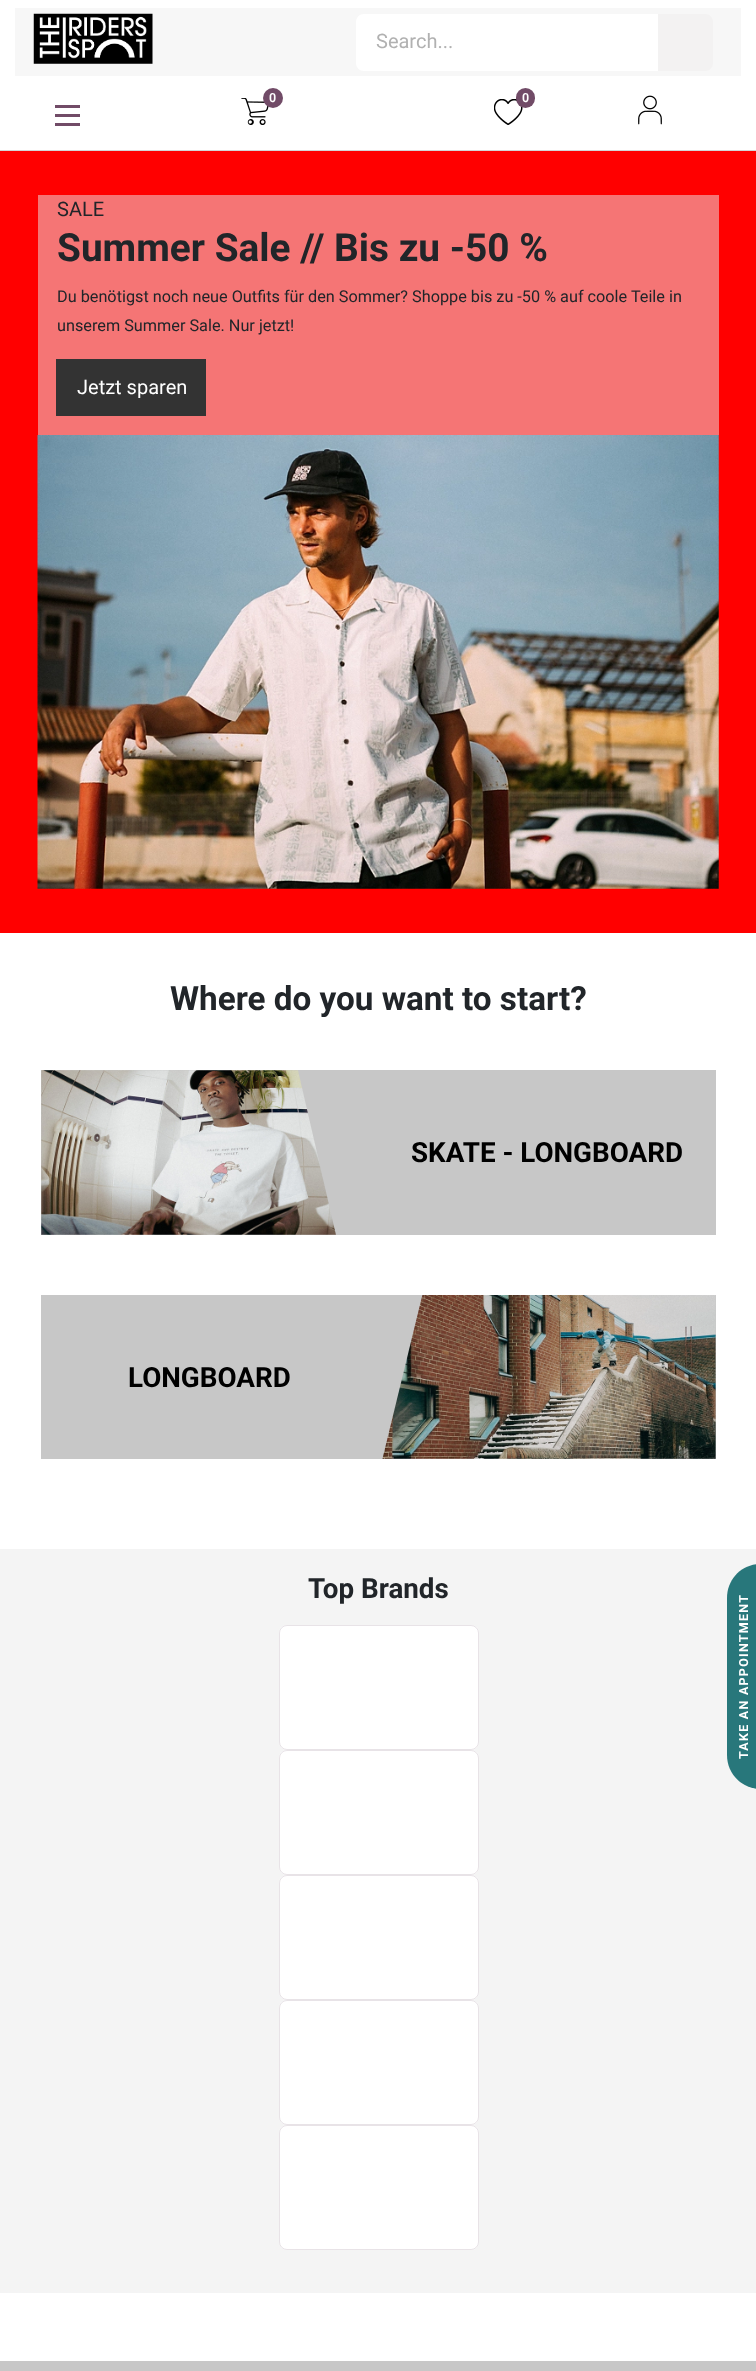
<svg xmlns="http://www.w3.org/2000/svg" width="756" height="2371">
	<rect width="100%" height="100%" fill="#FFFFFF" />
	<rect x="15" y="8" width="726" height="68" fill="#F7F7F7" />
	<image x="33" y="13" width="120" height="51" href="assets/img1.png" />
	<path d="M364 14H659V71H364C359.5 71 356 67.5 356 63V22C356 17.5 359.5 14 364 14Z" fill="#FFFFFF" />
	<text x="376" y="48" font-family="Roboto" font-size="20" fill="#B1B1B1">Search...</text>
	<path d="M658 14H705C709.5 14 713 17.5 713 22V63C713 67.5 709.5 71 705 71H658Z" fill="#F3F2F2" />
	<image x="241" y="98" width="28" height="27" href="assets/img2.png" />
	<circle cx="273" cy="98" r="10" fill="#714B67" />
	<text x="269" y="102" font-family="Roboto" font-size="12.5" font-weight="600" fill="#FFFFFF">0</text>
	<image x="494" y="99" width="29" height="26" href="assets/img3.png" />
	<rect x="516" y="88" width="19" height="20" rx="9.5" fill="#714B67" />
	<text x="522" y="102" font-family="Roboto" font-size="12.5" font-weight="600" fill="#FFFFFF">0</text>
	<image x="638" y="95" width="24" height="30" href="assets/img4.png" />
	<rect x="55" y="105" width="25" height="3" fill="#714B67" />
	<rect x="55" y="114" width="25" height="3" fill="#714B67" />
	<rect x="55" y="123" width="25" height="3" fill="#714B67" />
	<rect x="0" y="150" width="756" height="1" fill="#D4D5D6" />
	<rect x="0" y="151" width="756" height="782" fill="#FF0000" />
	<rect x="38" y="195" width="681" height="240" fill="#F57575" />
	<text x="57" y="216" font-family="Roboto" font-size="20" fill="#212529">SALE</text>
	<text x="57" y="261" font-family="Roboto" font-size="38.8" font-weight="700" fill="#212529">Summer Sale // Bis zu -50 %</text>
	<g font-family="Roboto" font-size="16.25" fill="#212529">
		<text x="57" y="302">Du benötigst noch neue Outfits für den Sommer? Shoppe bis zu -50 % auf coole Teile in</text>
		<text x="57" y="331">unserem Summer Sale. Nur jetzt!</text>
	</g>
	<rect x="56" y="359" width="150" height="57" fill="#333333" />
	<text x="77" y="394" font-family="Roboto" font-size="20" fill="#FFFFFF">Jetzt sparen</text>
	<image x="37" y="435" width="682" height="454" href="assets/img5.png" />
	<text x="170" y="1010" font-family="Roboto" font-size="33.25" font-weight="700" fill="#212529">Where do you want to start?</text>
	<rect x="41" y="1070" width="675" height="165" fill="#C7C7C7" />
	<image x="41" y="1070" width="295" height="165" href="assets/img6.png" />
	<text x="411" y="1162" font-family="Roboto" font-size="27.75" font-weight="700" fill="#000000">SKATE - LONGBOARD</text>
	<rect x="41" y="1295" width="675" height="164" fill="#C7C7C7" />
	<text x="128" y="1387" font-family="Roboto" font-size="27.75" font-weight="700" fill="#000000">LONGBOARD</text>
	<image x="382" y="1295" width="334" height="164" href="assets/img7.png" />
	<rect x="0" y="1549" width="756" height="744" fill="#F4F4F4" />
	<text x="308" y="1598" font-family="Roboto" font-size="27.75" font-weight="700" fill="#212529">Top Brands</text>
	<rect x="279" y="1625" width="200" height="125" rx="8" fill="#FFFFFF" />
	<rect x="279.5" y="1625.5" width="199" height="124" rx="7.5" fill="none" stroke="#65435C" stroke-opacity="0.15" />
	<rect x="279" y="1750" width="200" height="125" rx="8" fill="#FFFFFF" />
	<rect x="279.5" y="1750.5" width="199" height="124" rx="7.5" fill="none" stroke="#65435C" stroke-opacity="0.15" />
	<rect x="279" y="1875" width="200" height="125" rx="8" fill="#FFFFFF" />
	<rect x="279.5" y="1875.5" width="199" height="124" rx="7.5" fill="none" stroke="#65435C" stroke-opacity="0.15" />
	<rect x="279" y="2000" width="200" height="125" rx="8" fill="#FFFFFF" />
	<rect x="279.5" y="2000.5" width="199" height="124" rx="7.5" fill="none" stroke="#65435C" stroke-opacity="0.15" />
	<rect x="279" y="2125" width="200" height="125" rx="8" fill="#FFFFFF" />
	<rect x="279.5" y="2125.5" width="199" height="124" rx="7.5" fill="none" stroke="#65435C" stroke-opacity="0.15" />
	<rect x="0" y="2361" width="756" height="10" fill="#C7C7C7" />
	<path d="M727 1755V1598C727 1579 742 1564 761 1564V1789C742 1789 727 1774 727 1755Z" fill="#28777B" />
	<text x="748" y="1759" transform="rotate(-90 748 1759)" font-family="Roboto" font-size="12.5" font-weight="700" letter-spacing="1.25" fill="#FFFFFF">TAKE AN APPOINTMENT</text>
</svg>
